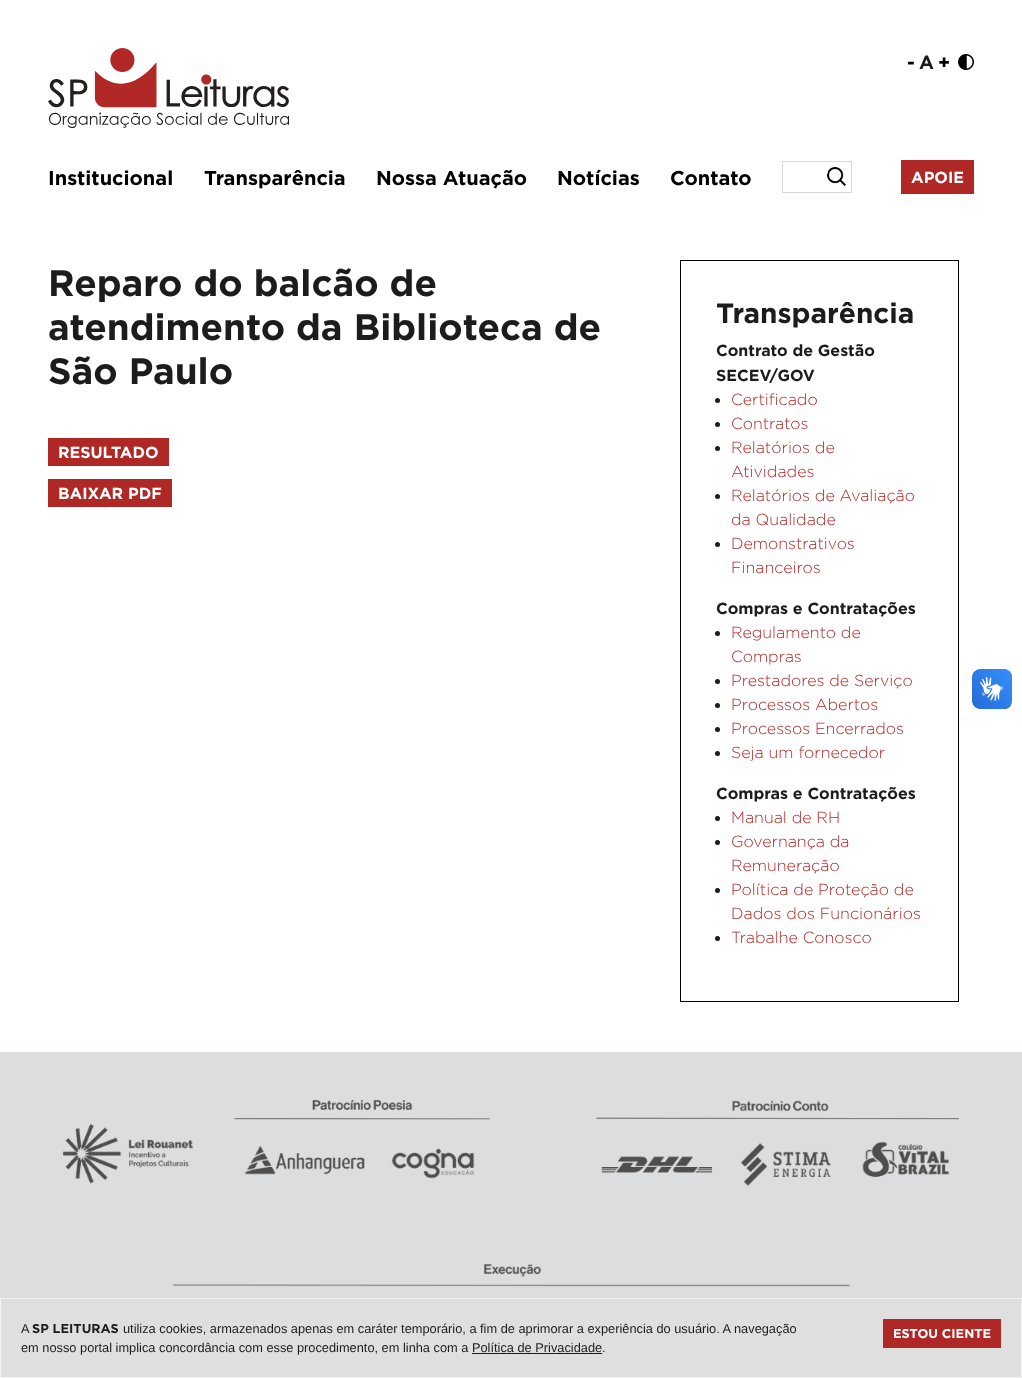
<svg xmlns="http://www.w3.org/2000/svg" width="1022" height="1378">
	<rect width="100%" height="100%" fill="#FFFFFF" />
	<image x="48" y="48" width="241" height="80" href="assets/img1.png" />
	<text x="907" y="69" font-family="Gotham" font-size="19" font-weight="700" fill="#000000">-</text>
	<text x="919" y="69" font-family="Gotham" font-size="19" font-weight="700" fill="#1C1C1C">A</text>
	<text x="938" y="69" font-family="Gotham" font-size="19" font-weight="700" fill="#000000">+</text>
	<image x="958" y="54" width="16" height="16" href="assets/img2.png" />
	<g font-family="Gotham" font-size="20" font-weight="700" fill="#000000">
		<text x="48" y="185">Institucional</text>
		<text x="204" y="185">Transparência</text>
		<text x="376" y="185">Nossa Atuação</text>
		<text x="557" y="185">Notícias</text>
		<text x="670" y="185">Contato</text>
	</g>
	<rect x="782.5" y="161.5" width="69" height="31" fill="none" stroke="#D7D7D7" />
	<image x="827" y="167" width="19" height="20" href="assets/img3.png" />
	<rect x="901" y="160" width="73" height="34" fill="#B02825" />
	<text x="911" y="183" font-family="Gotham" font-size="16" font-weight="700" fill="#FFFFFF">APOIE</text>
	<g font-family="Gotham" font-size="36.75" font-weight="700" fill="#1C1C1C">
		<text x="48" y="296">Reparo do balcão de</text>
		<text x="48" y="340">atendimento da Biblioteca de</text>
		<text x="48" y="384">São Paulo</text>
	</g>
	<rect x="48" y="438" width="121" height="28" fill="#B02825" />
	<text x="58" y="458" font-family="Gotham" font-size="16" font-weight="700" fill="#FFFFFF">RESULTADO</text>
	<rect x="48" y="479" width="124" height="28" fill="#B02825" />
	<text x="58" y="499" font-family="Gotham" font-size="16" font-weight="700" fill="#FFFFFF">BAIXAR PDF</text>
	<rect x="680.5" y="260.5" width="278" height="741" fill="none" stroke="#000000" />
	<text x="716" y="323" font-family="Gotham" font-size="28" font-weight="700" fill="#1C1C1C">Transparência</text>
	<g font-family="Gotham" font-size="16" font-weight="700" fill="#1C1C1C">
		<text x="716" y="356">Contrato de Gestão</text>
		<text x="716" y="381">SECEV/GOV</text>
	</g>
	<circle cx="717.5" cy="400.5" r="2.5" fill="#1C1C1C" />
	<text x="731" y="405" font-family="Gotham" font-size="16" font-weight="300" fill="#B02825">Certificado</text>
	<circle cx="717.5" cy="424.5" r="2.5" fill="#1C1C1C" />
	<text x="731" y="429" font-family="Gotham" font-size="16" font-weight="300" fill="#B02825">Contratos</text>
	<circle cx="717.5" cy="448.5" r="2.5" fill="#1C1C1C" />
	<g font-family="Gotham" font-size="16" font-weight="300" fill="#B02825">
		<text x="731" y="453">Relatórios de</text>
		<text x="731" y="477">Atividades</text>
	</g>
	<circle cx="717.5" cy="496.5" r="2.5" fill="#1C1C1C" />
	<g font-family="Gotham" font-size="16" font-weight="300" fill="#B02825">
		<text x="731" y="501">Relatórios de Avaliação</text>
		<text x="731" y="525">da Qualidade</text>
	</g>
	<circle cx="717.5" cy="544.5" r="2.5" fill="#1C1C1C" />
	<g font-family="Gotham" font-size="16" font-weight="300" fill="#B02825">
		<text x="731" y="549">Demonstrativos</text>
		<text x="731" y="573">Financeiros</text>
	</g>
	<text x="716" y="614" font-family="Gotham" font-size="16" font-weight="700" fill="#1C1C1C">Compras e Contratações</text>
	<circle cx="717.5" cy="633.5" r="2.5" fill="#1C1C1C" />
	<g font-family="Gotham" font-size="16" font-weight="300" fill="#B02825">
		<text x="731" y="638">Regulamento de</text>
		<text x="731" y="662">Compras</text>
	</g>
	<circle cx="717.5" cy="681.5" r="2.5" fill="#1C1C1C" />
	<text x="731" y="686" font-family="Gotham" font-size="16" font-weight="300" fill="#B02825">Prestadores de Serviço</text>
	<circle cx="717.5" cy="705.5" r="2.5" fill="#1C1C1C" />
	<text x="731" y="710" font-family="Gotham" font-size="16" font-weight="300" fill="#B02825">Processos Abertos</text>
	<circle cx="717.5" cy="729.5" r="2.5" fill="#1C1C1C" />
	<text x="731" y="734" font-family="Gotham" font-size="16" font-weight="300" fill="#B02825">Processos Encerrados</text>
	<circle cx="717.5" cy="753.5" r="2.5" fill="#1C1C1C" />
	<text x="731" y="758" font-family="Gotham" font-size="16" font-weight="300" fill="#B02825">Seja um fornecedor</text>
	<text x="716" y="799" font-family="Gotham" font-size="16" font-weight="700" fill="#1C1C1C">Compras e Contratações</text>
	<circle cx="717.5" cy="818.5" r="2.5" fill="#1C1C1C" />
	<text x="731" y="823" font-family="Gotham" font-size="16" font-weight="300" fill="#B02825">Manual de RH</text>
	<circle cx="717.5" cy="842.5" r="2.5" fill="#1C1C1C" />
	<g font-family="Gotham" font-size="16" font-weight="300" fill="#B02825">
		<text x="731" y="847">Governança da</text>
		<text x="731" y="871">Remuneração</text>
	</g>
	<circle cx="717.5" cy="890.5" r="2.5" fill="#1C1C1C" />
	<g font-family="Gotham" font-size="16" font-weight="300" fill="#B02825">
		<text x="731" y="895">Política de Proteção de</text>
		<text x="731" y="919">Dados dos Funcionários</text>
	</g>
	<circle cx="717.5" cy="938.5" r="2.5" fill="#1C1C1C" />
	<text x="731" y="943" font-family="Gotham" font-size="16" font-weight="300" fill="#B02825">Trabalhe Conosco</text>
	<image x="972" y="669" width="40" height="40" href="assets/img4.png" />
	<image x="972" y="669" width="40" height="40" href="assets/img5.png" />
	<rect x="0" y="1052" width="1022" height="246" fill="#DCDDDE" />
	<image x="63" y="1100" width="896" height="187" href="assets/img6.png" />
	<rect x="0.5" y="1298.5" width="1021" height="79" fill="#DFDFDF" stroke="#F4F4F4" />
	<text x="21" y="1333" font-family="Liberation Sans" font-size="12.8" fill="#1C1C1C">A</text>
	<text x="32" y="1333" font-family="Gotham" font-size="12.8" font-weight="700" fill="#1C1C1C">SP LEITURAS</text>
	<g font-family="Liberation Sans" font-size="12.8" fill="#1C1C1C">
		<text x="123" y="1333">utiliza cookies, armazenados apenas em caráter temporário, a fim de aprimorar a experiência do usuário. A navegação</text>
		<text x="21" y="1352">em nosso portal implica concordância com esse procedimento, em linha com a Política de Privacidade.</text>
	</g>
	<rect x="472" y="1353" width="130" height="1" fill="#1C1C1C" />
	<rect x="883" y="1319" width="118" height="29" fill="#B02825" />
	<text x="893" y="1338" font-family="Gotham" font-size="12.8" font-weight="700" fill="#FFFFFF">ESTOU CIENTE</text>
</svg>
